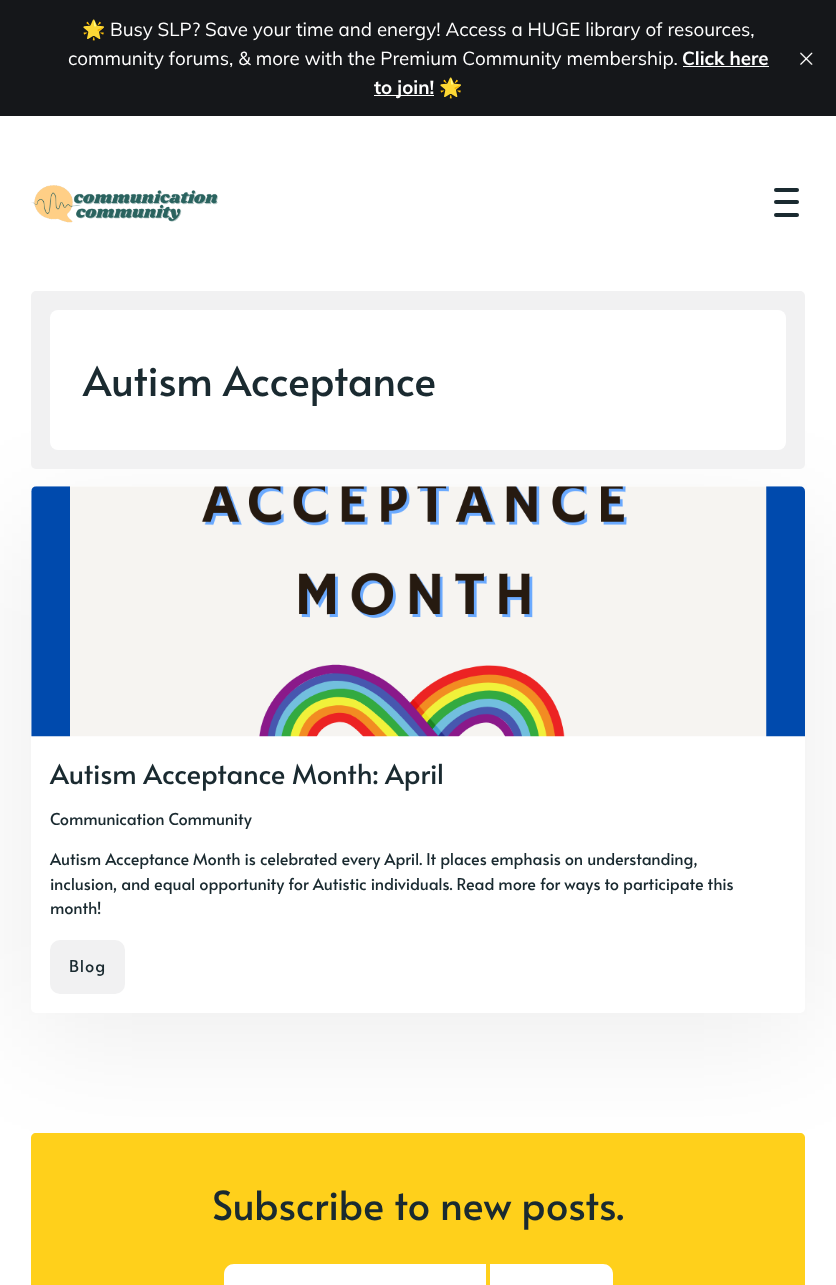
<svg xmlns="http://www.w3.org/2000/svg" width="836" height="1285">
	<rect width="100%" height="100%" fill="#FFFFFF" />
	<rect x="0" y="0" width="836" height="116" fill="#15171A" />
	<text x="82" y="36" font-family="Noto Color Emoji" font-size="18.75" fill="#FFFFFF">🌟</text>
	<g font-family="Muli" font-size="18.75" fill="#FFFFFF">
		<text x="110" y="36">Busy SLP? Save your time and energy! Access a HUGE library of resources,</text>
		<text x="68" y="65">community forums, &amp; more with the Premium Community membership.</text>
	</g>
	<text x="682" y="65" font-family="Muli" font-size="18.75" font-weight="700" fill="#FFFFFF">Click here</text>
	<rect x="683" y="66" width="86" height="1" fill="#FFFFFF" />
	<rect x="374" y="95" width="60" height="1" fill="#FFFFFF" />
	<text x="374" y="94" font-family="Muli" font-size="18.75" font-weight="700" fill="#FFFFFF">to join!</text>
	<text x="439" y="94" font-family="Noto Color Emoji" font-size="18.75" fill="#FFFFFF">🌟</text>
	<image x="800" y="52" width="13" height="13" href="assets/img1.png" />
	<image x="31" y="185" width="187" height="38" href="assets/img2.png" />
	<rect x="774" y="188" width="25" height="4" rx="2" fill="#1A2A30" />
	<rect x="774" y="200" width="25" height="4" rx="2" fill="#1A2A30" />
	<rect x="774" y="213" width="25" height="4" rx="2" fill="#1A2A30" />
	<rect x="25" y="524" width="786" height="514" fill="#000000" fill-opacity="0.07" filter="blur(59.5px)" />
	<rect x="31" y="291" width="774" height="178" rx="5" fill="#F1F1F2" />
	<rect x="50" y="310" width="736" height="140" rx="8" fill="#FFFFFF" />
	<text x="83" y="396" font-family="Alata" font-size="41.25" fill="#1A2A30">Autism Acceptance</text>
	<rect x="31" y="486" width="774" height="527" rx="5" fill="#FFFFFF" />
	<image x="31" y="486" width="774" height="251" href="assets/img3.png" />
	<text x="50" y="784" font-family="Alata" font-size="27.5" fill="#1A2A30">Autism Acceptance Month: April</text>
	<g font-family="Alata" font-size="16.25" fill="#1A2A30">
		<text x="50" y="825">Communication Community</text>
		<text x="50" y="865">Autism Acceptance Month is celebrated every April. It places emphasis on understanding,</text>
		<text x="50" y="890">inclusion, and equal opportunity for Autistic individuals. Read more for ways to participate this</text>
		<text x="50" y="914">month!</text>
	</g>
	<rect x="50" y="940" width="75" height="54" rx="10" fill="#F1F1F2" />
	<text x="69" y="972" font-family="Alata" font-size="16.25" letter-spacing="1" fill="#1A2A30">Blog</text>
	<path d="M36 1133H800C803 1133 805 1135 805 1138V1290H31V1138C31 1135 33 1133 36 1133Z" fill="#FFD01B" />
	<text x="212" y="1220" font-family="Alata" font-size="40" fill="#1A2A30">Subscribe to new posts.</text>
	<path d="M234 1264H486V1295H234C228.5 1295 224 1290.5 224 1285V1274C224 1268.5 228.5 1264 234 1264Z" fill="#FFFFFF" />
	<path d="M490 1264H603C608.5 1264 613 1268.5 613 1274V1285C613 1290.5 608.5 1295 603 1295H490Z" fill="#FFFFFF" />
</svg>
